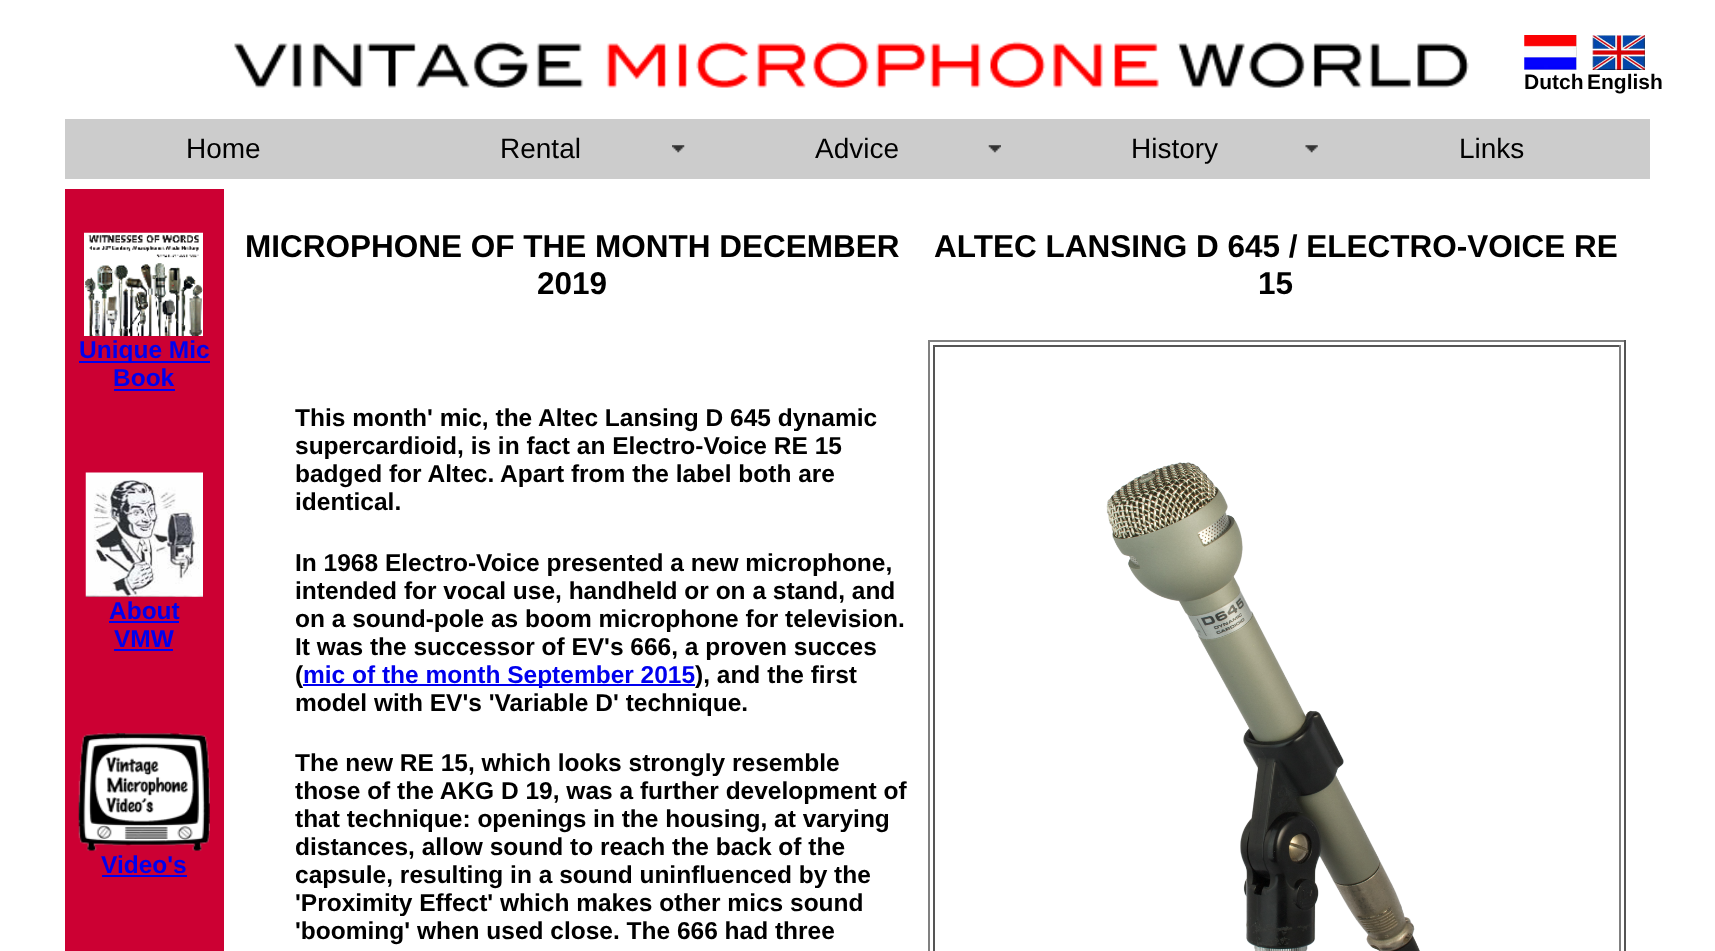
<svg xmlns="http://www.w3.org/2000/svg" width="1715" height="951">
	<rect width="100%" height="100%" fill="#FFFFFF" />
	<image x="234" y="41" width="1235" height="47" href="assets/img1.png" />
	<image x="1524" y="35" width="53" height="35" href="assets/img2.png" />
	<text x="1524" y="89" font-family="Liberation Sans" font-size="21" font-weight="700" fill="#000000">Dutch</text>
	<image x="1592" y="35" width="53" height="35" href="assets/img3.png" />
	<text x="1587" y="89" font-family="Liberation Sans" font-size="21" font-weight="700" fill="#000000">English</text>
	<rect x="65" y="119" width="1585" height="60" fill="#CCCCCC" />
	<text x="186" y="158" font-family="Liberation Sans" font-size="28" fill="#000000">Home</text>
	<image x="672" y="145" width="13" height="8" href="assets/img4.png" />
	<text x="500" y="158" font-family="Liberation Sans" font-size="28" fill="#000000">Rental</text>
	<image x="988" y="145" width="13" height="8" href="assets/img5.png" />
	<text x="815" y="158" font-family="Liberation Sans" font-size="28" fill="#000000">Advice</text>
	<image x="1305" y="145" width="13" height="8" href="assets/img6.png" />
	<g font-family="Liberation Sans" font-size="28" fill="#000000">
		<text x="1131" y="158">History</text>
		<text x="1459" y="158">Links</text>
	</g>
	<rect x="65" y="189" width="159" height="762" fill="#CC0033" />
	<image x="84" y="232" width="119" height="104" href="assets/img7.png" />
	<rect x="79" y="361" width="131" height="2" fill="#0000EE" />
	<g font-family="Liberation Sans" font-size="24.5" font-weight="700" fill="#0000EE">
		<text x="79" y="358">Unique Mic</text>
		<text x="113" y="386">Book</text>
	</g>
	<rect x="114" y="389" width="61" height="2" fill="#0000EE" />
	<image x="85" y="472" width="118" height="125" href="assets/img8.png" />
	<text x="109" y="619" font-family="Liberation Sans" font-size="24.5" font-weight="700" fill="#0000EE">About</text>
	<rect x="109" y="621" width="70" height="2" fill="#0000EE" />
	<text x="114" y="647" font-family="Liberation Sans" font-size="24.5" font-weight="700" fill="#0000EE">VMW</text>
	<rect x="114" y="649" width="59" height="2" fill="#0000EE" />
	<image x="78" y="733" width="132" height="118" href="assets/img9.png" />
	<text x="101" y="873" font-family="Liberation Sans" font-size="24.5" font-weight="700" fill="#0000EE">Video's</text>
	<rect x="102" y="875" width="85" height="2" fill="#0000EE" />
	<g font-family="Liberation Sans" font-size="31.5" font-weight="700" fill="#000000">
		<text x="245" y="257">MICROPHONE OF THE MONTH DECEMBER</text>
		<text x="537" y="294">2019</text>
		<text x="934" y="257">ALTEC LANSING D 645 / ELECTRO-VOICE RE</text>
		<text x="1258" y="294">15</text>
	</g>
	<g font-family="Liberation Sans" font-size="24.5" font-weight="700" fill="#000000">
		<text x="295" y="426">This month' mic, the Altec Lansing D 645 dynamic</text>
		<text x="295" y="454">supercardioid, is in fact an Electro-Voice RE 15</text>
		<text x="295" y="482">badged for Altec. Apart from the label both are</text>
		<text x="295" y="510">identical.</text>
		<text x="295" y="571">In 1968 Electro-Voice presented a new microphone,</text>
		<text x="295" y="599">intended for vocal use, handheld or on a stand, and</text>
		<text x="295" y="627">on a sound-pole as boom microphone for television.</text>
		<text x="295" y="655">It was the successor of EV's 666, a proven succes</text>
		<text x="295" y="683">(</text>
	</g>
	<rect x="303" y="684" width="392" height="2" fill="#0000EE" />
	<text x="303" y="683" font-family="Liberation Sans" font-size="24.5" font-weight="700" fill="#0000EE">mic of the month September 2015</text>
	<g font-family="Liberation Sans" font-size="24.5" font-weight="700" fill="#000000">
		<text x="695" y="683">), and the first</text>
		<text x="295" y="711">model with EV's 'Variable D' technique.</text>
		<text x="295" y="771">The new RE 15, which looks strongly resemble</text>
		<text x="295" y="799">those of the AKG D 19, was a further development of</text>
		<text x="295" y="827">that technique: openings in the housing, at varying</text>
		<text x="295" y="855">distances, allow sound to reach the back of the</text>
		<text x="295" y="883">capsule, resulting in a sound uninfluenced by the</text>
		<text x="295" y="911">'Proximity Effect' which makes other mics sound</text>
		<text x="295" y="939">'booming' when used close. The 666 had three</text>
	</g>
	<rect x="928" y="340" width="698" height="2" fill="#808080" />
	<rect x="1624" y="340" width="2" height="611" fill="#555555" />
	<rect x="928" y="340" width="2" height="611" fill="#808080" />
	<rect x="933" y="345" width="688" height="2" fill="#555555" />
	<rect x="1619" y="345" width="2" height="606" fill="#808080" />
	<rect x="933" y="345" width="2" height="606" fill="#555555" />
	<image x="1106" y="462" width="314" height="489" href="assets/img10.png" />
</svg>
